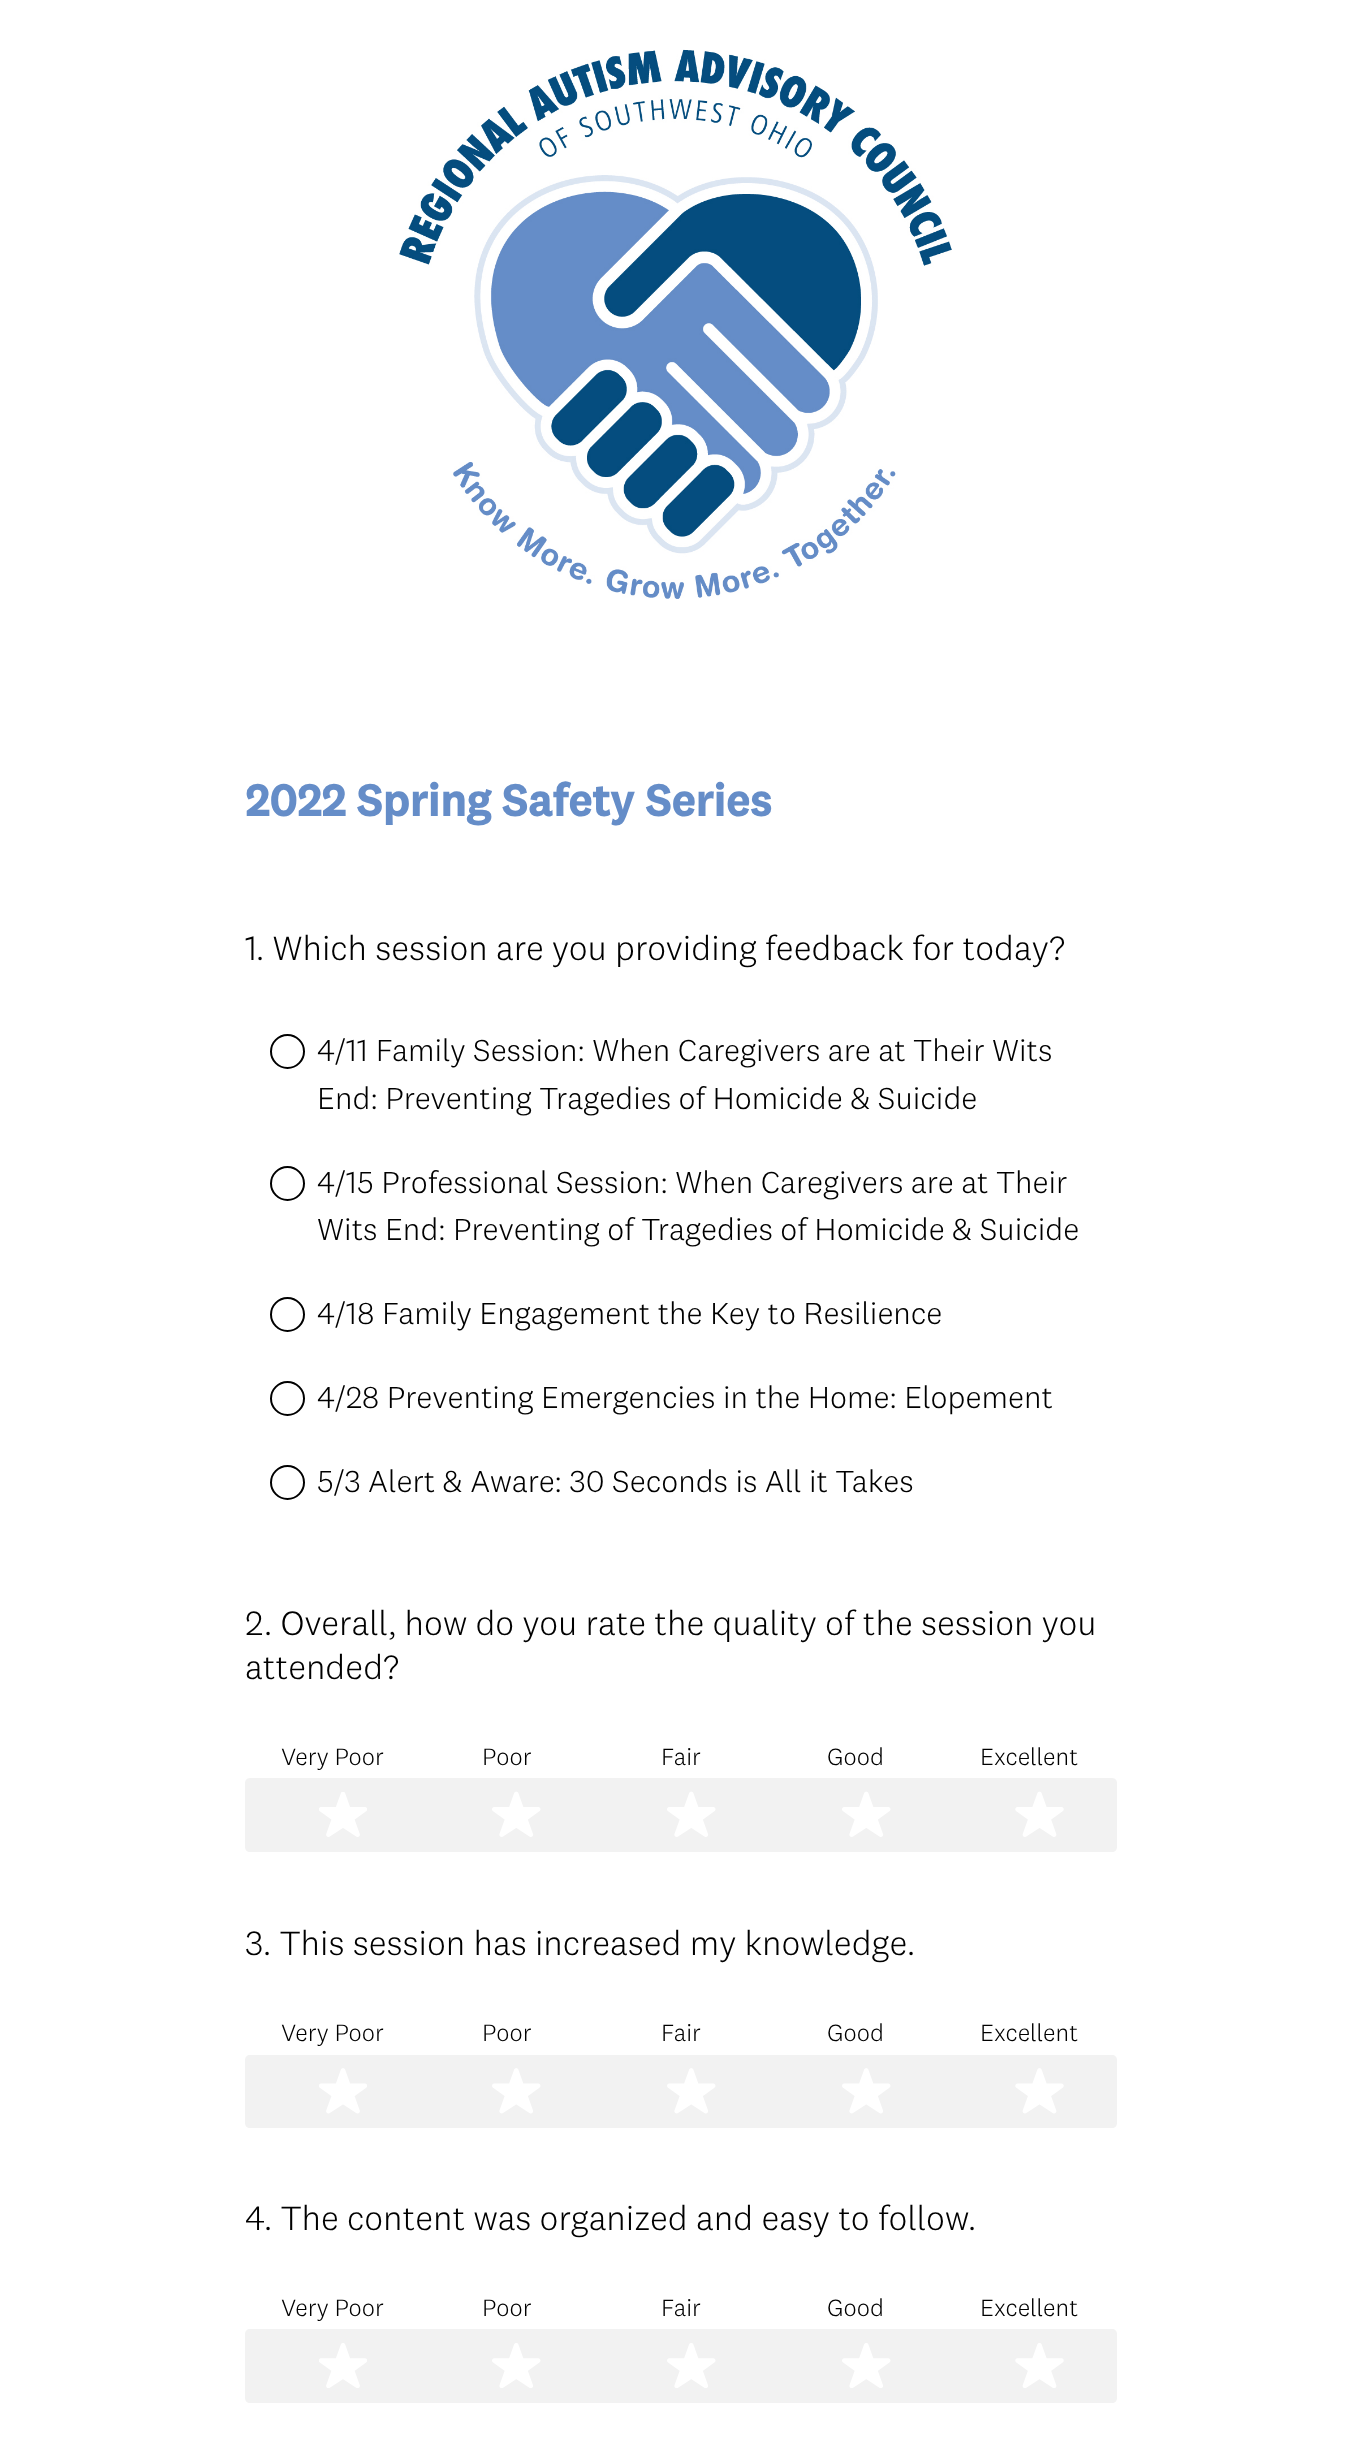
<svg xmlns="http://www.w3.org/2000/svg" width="1360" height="2452">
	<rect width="100%" height="100%" fill="#FFFFFF" />
	<image x="399" y="49" width="553" height="550" href="assets/img1.png" />
	<text x="245" y="816" font-family="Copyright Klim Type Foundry" font-size="45.5" font-weight="700" fill="#658DC8">2022 Spring Safety Series</text>
	<g font-family="Copyright Klim Type Foundry" font-size="35" font-weight="300" fill="#000000">
		<text x="245" y="960">1</text>
		<text x="256" y="960">. Which session are you providing feedback for today?</text>
	</g>
	<circle cx="287.5" cy="1051.5" r="16.5" fill="none" stroke="#000000" stroke-width="2" />
	<g font-family="Copyright Klim Type Foundry" font-size="31.5" font-weight="300" fill="#000000">
		<text x="317" y="1061">4/11 Family Session: When Caregivers are at Their Wits</text>
		<text x="317" y="1109">End: Preventing Tragedies of Homicide &amp; Suicide</text>
	</g>
	<circle cx="287.5" cy="1183.5" r="16.5" fill="none" stroke="#000000" stroke-width="2" />
	<g font-family="Copyright Klim Type Foundry" font-size="31.5" font-weight="300" fill="#000000">
		<text x="317" y="1193">4/15 Professional Session: When Caregivers are at Their</text>
		<text x="317" y="1240">Wits End: Preventing of Tragedies of Homicide &amp; Suicide</text>
	</g>
	<circle cx="287.5" cy="1314.5" r="16.5" fill="none" stroke="#000000" stroke-width="2" />
	<text x="317" y="1324" font-family="Copyright Klim Type Foundry" font-size="31.5" font-weight="300" fill="#000000">4/18 Family Engagement the Key to Resilience</text>
	<circle cx="287.5" cy="1398.5" r="16.5" fill="none" stroke="#000000" stroke-width="2" />
	<text x="317" y="1408" font-family="Copyright Klim Type Foundry" font-size="31.5" font-weight="300" fill="#000000">4/28 Preventing Emergencies in the Home: Elopement</text>
	<circle cx="287.5" cy="1482.5" r="16.5" fill="none" stroke="#000000" stroke-width="2" />
	<text x="317" y="1492" font-family="Copyright Klim Type Foundry" font-size="31.5" font-weight="300" fill="#000000">5/3 Alert &amp; Aware: 30 Seconds is All it Takes</text>
	<g font-family="Copyright Klim Type Foundry" font-size="35" font-weight="300" fill="#000000">
		<text x="245" y="1635">2</text>
		<text x="264" y="1635">. Overall, how do you rate the quality of the session you</text>
		<text x="245" y="1679">attended?</text>
	</g>
	<g font-family="Copyright Klim Type Foundry" font-size="24.5" font-weight="300" fill="#000000">
		<text x="281" y="1765">Very Poor</text>
		<text x="482" y="1765">Poor</text>
		<text x="661" y="1765">Fair</text>
		<text x="827" y="1765">Good</text>
		<text x="980" y="1765">Excellent</text>
	</g>
	<path d="M250 1778H420V1852H250C247 1852 245 1850 245 1847V1783C245 1780 247 1778 250 1778Z" fill="#F2F2F2" />
	<image x="319" y="1792" width="48" height="45" href="assets/img2.png" />
	<rect x="420" y="1778" width="522" height="74" fill="#F2F2F2" />
	<image x="492" y="1791" width="49" height="46" href="assets/img3.png" />
	<path d="M942 1778H1112C1115 1778 1117 1780 1117 1783V1847C1117 1850 1115 1852 1112 1852H942Z" fill="#F2F2F2" />
	<image x="1015" y="1791" width="49" height="46" href="assets/img4.png" />
	<image x="667" y="1791" width="49" height="46" href="assets/img3.png" />
	<image x="842" y="1791" width="49" height="46" href="assets/img3.png" />
	<g font-family="Copyright Klim Type Foundry" font-size="35" font-weight="300" fill="#000000">
		<text x="245" y="1955">3</text>
		<text x="263" y="1955">. This session has increased my knowledge.</text>
	</g>
	<g font-family="Copyright Klim Type Foundry" font-size="24.5" font-weight="300" fill="#000000">
		<text x="281" y="2041">Very Poor</text>
		<text x="482" y="2041">Poor</text>
		<text x="661" y="2041">Fair</text>
		<text x="827" y="2041">Good</text>
		<text x="980" y="2041">Excellent</text>
	</g>
	<path d="M250 2055H420V2128H250C247 2128 245 2126 245 2123V2060C245 2057 247 2055 250 2055Z" fill="#F2F2F2" />
	<image x="319" y="2068" width="48" height="46" href="assets/img5.png" />
	<rect x="420" y="2055" width="522" height="73" fill="#F2F2F2" />
	<image x="492" y="2068" width="49" height="46" href="assets/img6.png" />
	<path d="M942 2055H1112C1115 2055 1117 2057 1117 2060V2123C1117 2126 1115 2128 1112 2128H942Z" fill="#F2F2F2" />
	<image x="1015" y="2068" width="49" height="46" href="assets/img7.png" />
	<image x="667" y="2068" width="49" height="46" href="assets/img6.png" />
	<image x="842" y="2068" width="49" height="46" href="assets/img6.png" />
	<g font-family="Copyright Klim Type Foundry" font-size="35" font-weight="300" fill="#000000">
		<text x="245" y="2230">4</text>
		<text x="264" y="2230">. The content was organized and easy to follow.</text>
	</g>
	<g font-family="Copyright Klim Type Foundry" font-size="24.5" font-weight="300" fill="#000000">
		<text x="281" y="2316">Very Poor</text>
		<text x="482" y="2316">Poor</text>
		<text x="661" y="2316">Fair</text>
		<text x="827" y="2316">Good</text>
		<text x="980" y="2316">Excellent</text>
	</g>
	<path d="M250 2329H420V2403H250C247 2403 245 2401 245 2398V2334C245 2331 247 2329 250 2329Z" fill="#F2F2F2" />
	<image x="319" y="2343" width="48" height="45" href="assets/img8.png" />
	<rect x="420" y="2329" width="522" height="74" fill="#F2F2F2" />
	<image x="492" y="2343" width="49" height="45" href="assets/img9.png" />
	<path d="M942 2329H1112C1115 2329 1117 2331 1117 2334V2398C1117 2401 1115 2403 1112 2403H942Z" fill="#F2F2F2" />
	<image x="1015" y="2343" width="49" height="45" href="assets/img10.png" />
	<image x="667" y="2343" width="49" height="45" href="assets/img9.png" />
	<image x="842" y="2343" width="49" height="45" href="assets/img9.png" />
</svg>
